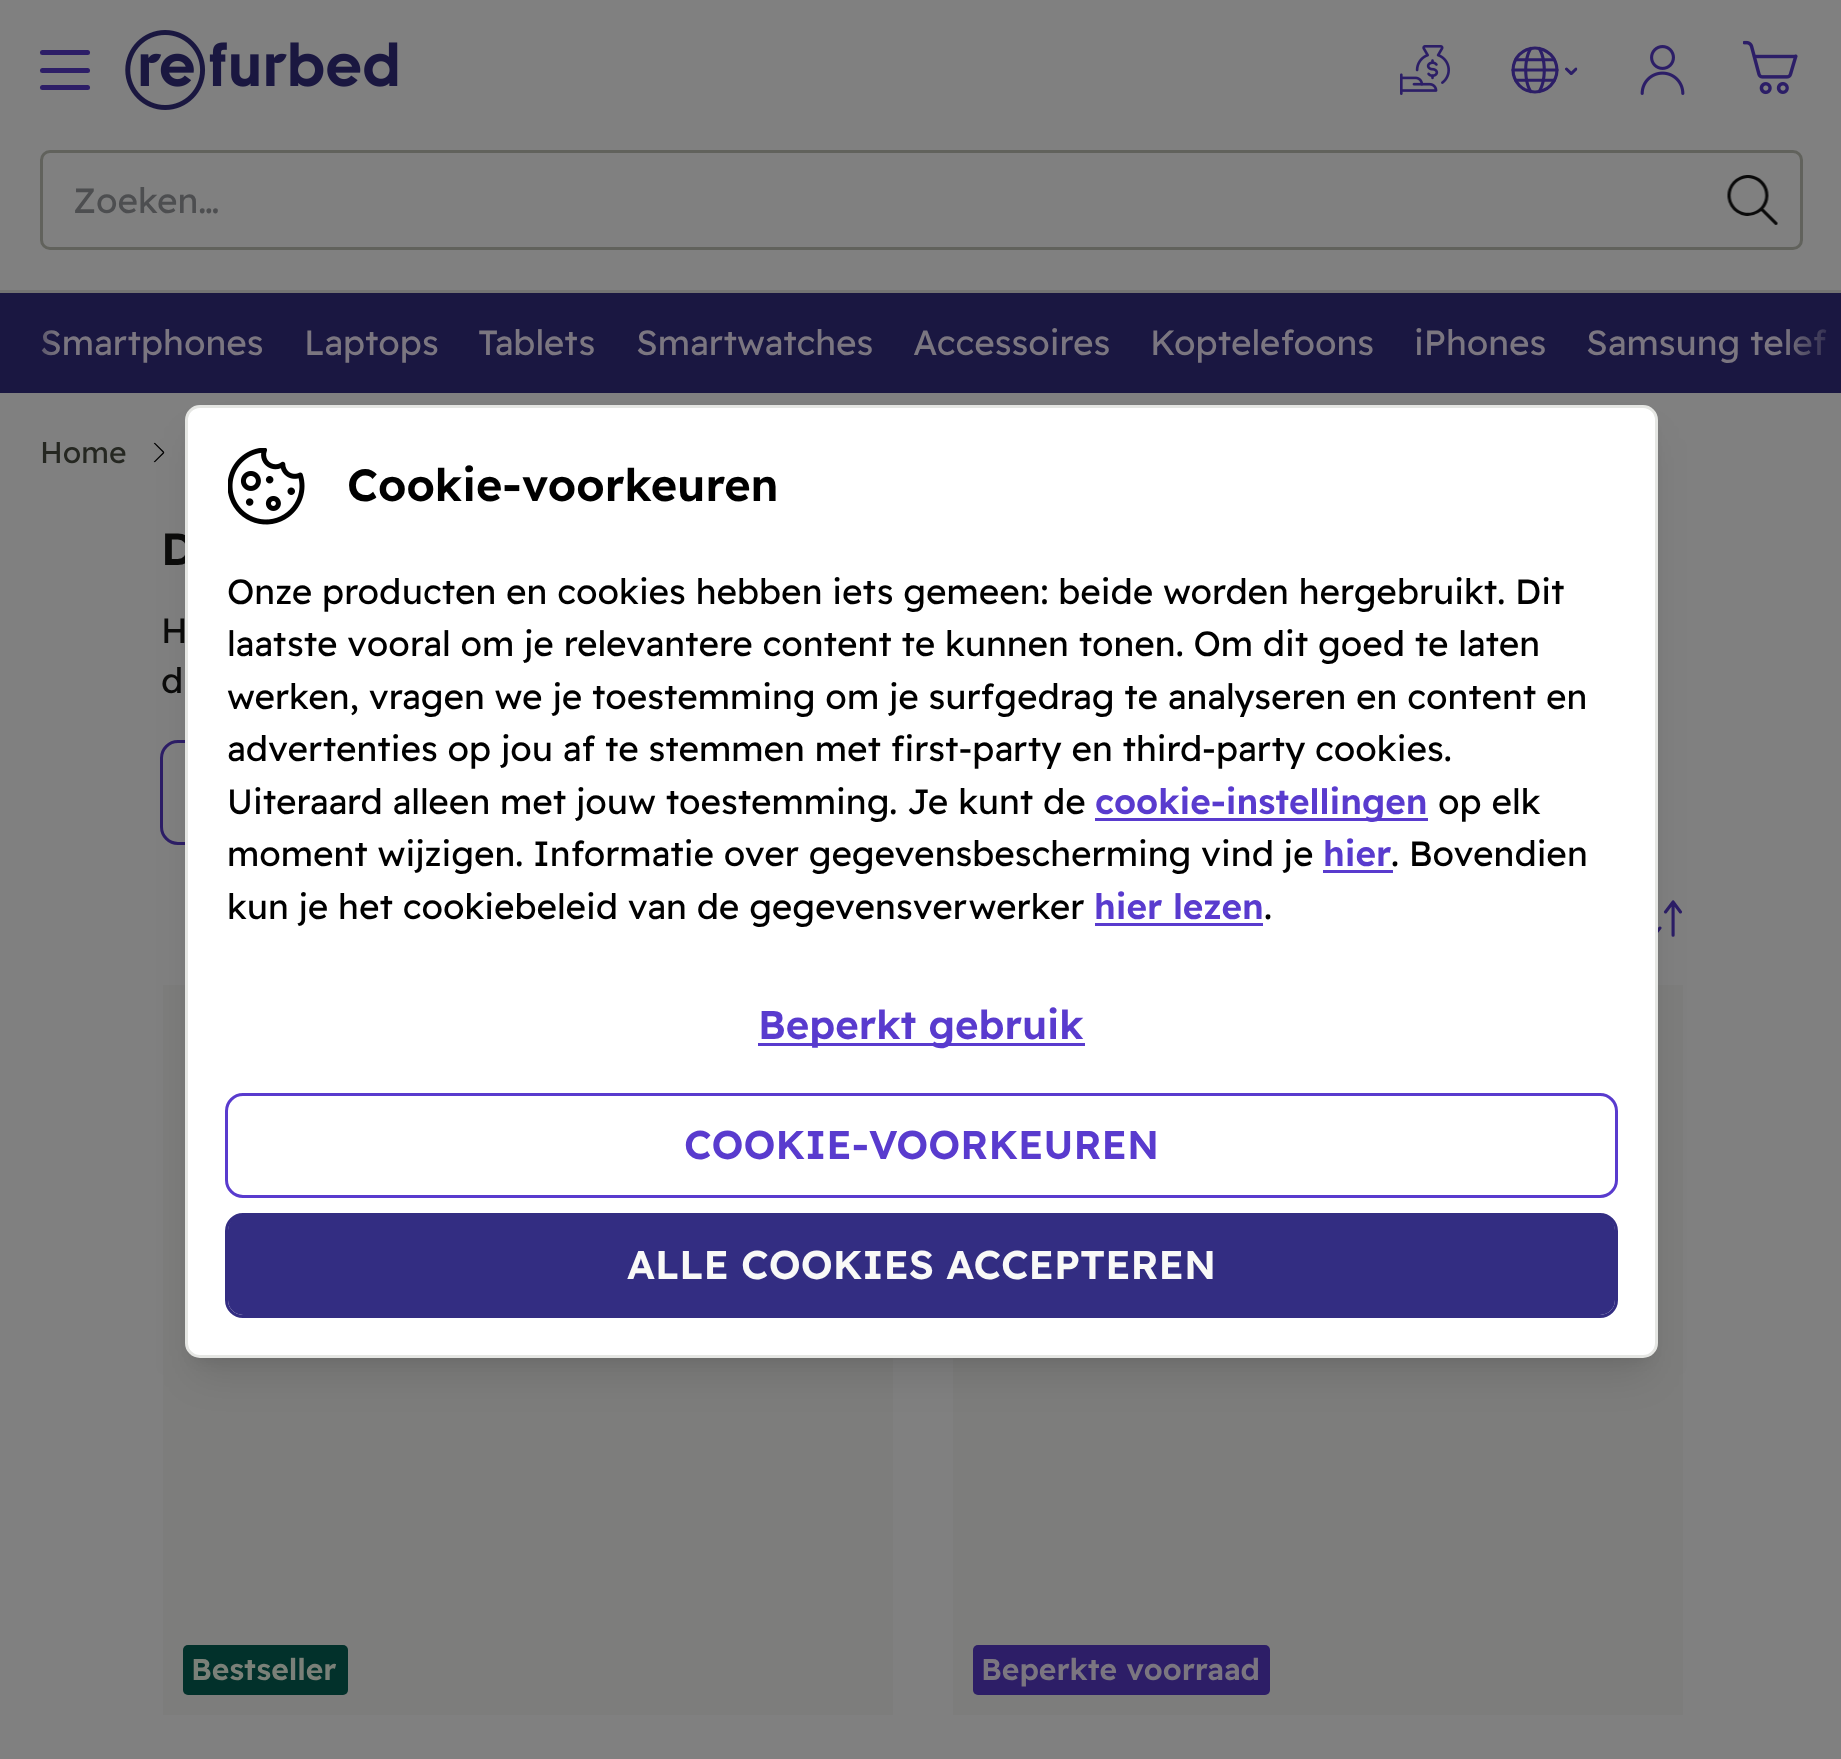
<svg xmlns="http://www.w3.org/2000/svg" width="1841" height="1759">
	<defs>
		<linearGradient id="g1" gradientUnits="userSpaceOnUse" x1="0" y1="343" x2="60" y2="343"><stop offset="0" stop-color="#1A1741" /><stop offset="1" stop-color="#1A1741" stop-opacity="0" /></linearGradient>
		<linearGradient id="g2" gradientUnits="userSpaceOnUse" x1="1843" y1="343" x2="1783" y2="343"><stop offset="0" stop-color="#1A1741" /><stop offset="1" stop-color="#1A1741" stop-opacity="0" /></linearGradient>
	</defs>
	<rect width="100%" height="100%" fill="#808080" />
	<rect x="0" y="290" width="1841" height="3" fill="#737372" />
	<rect x="40" y="50" width="50" height="5" rx="2.5" fill="#2D1E67" />
	<rect x="40" y="68" width="50" height="5" rx="2.5" fill="#2D1E67" />
	<rect x="40" y="85" width="50" height="5" rx="2.5" fill="#2D1E67" />
	<image x="125" y="30" width="273" height="80" href="assets/img1.png" />
	<image x="1400" y="45" width="50" height="50" href="assets/img2.png" />
	<image x="1511" y="46" width="48" height="48" href="assets/img3.png" />
	<image x="1565" y="67" width="13" height="8" href="assets/img4.png" />
	<image x="1640" y="45" width="45" height="50" href="assets/img5.png" />
	<image x="1743" y="40" width="55" height="55" href="assets/img6.png" />
	<rect x="41.5" y="151.5" width="1760" height="97" rx="8.5" fill="none" stroke="#61625C" stroke-width="3" />
	<text x="73" y="213" font-family="Readex Pro" font-size="35" fill="#4D4E50">Zoeken…</text>
	<image x="1727" y="175" width="51" height="50" href="assets/img7.png" />
	<rect x="0" y="293" width="1841" height="100" fill="#1A1741" />
	<g font-family="Readex Pro" font-size="35" fill="#7B7680">
		<text x="40" y="355">Smartphones</text>
		<text x="304" y="355">Laptops</text>
		<text x="478" y="355">Tablets</text>
		<text x="636" y="355">Smartwatches</text>
		<text x="913" y="355">Accessoires</text>
		<text x="1150" y="355">Koptelefoons</text>
		<text x="1414" y="355">iPhones</text>
		<text x="1586" y="355">Samsung telef</text>
	</g>
	<rect x="42" y="330" width="16" height="26" fill="url(#g1)" />
	<rect x="1787" y="329" width="40" height="27" fill="url(#g2)" />
	<text x="40" y="463" font-family="Readex Pro" font-size="30" fill="#252721">Home</text>
	<image x="153" y="442" width="12" height="21" href="assets/img8.png" />
	<rect x="161.5" y="741.5" width="207" height="102" rx="16.5" fill="none" stroke="#2D1E67" stroke-width="3" />
	<image x="1658" y="900" width="25" height="37" href="assets/img10.png" />
	<rect x="163" y="985" width="730" height="730" fill="#7D7D7C" />
	<rect x="953" y="985" width="730" height="730" fill="#7D7D7C" />
	<rect x="195" y="425" width="1453" height="933" rx="5" fill="#000000" fill-opacity="0.1" filter="blur(7.5px)" />
	<rect x="193" y="438" width="1457" height="937" rx="8" fill="#000000" fill-opacity="0.1" filter="blur(19px)" />
	<text x="161" y="565" font-family="Readex Pro" font-size="45" font-weight="600" fill="#0B0B0A">D</text>
	<rect x="186.5" y="406.5" width="1470" height="950" rx="13.5" fill="#FFFFFF" stroke="#E5E6E3" stroke-width="3" />
	<image x="228" y="448" width="77" height="77" href="assets/img9.png" />
	<text x="347" y="501" font-family="Readex Pro" font-size="45" font-weight="600" fill="#000000">Cookie-voorkeuren</text>
	<g font-family="Readex Pro" font-size="35" fill="#000000">
		<text x="227" y="604">Onze producten en cookies hebben iets gemeen: beide worden hergebruikt. Dit</text>
		<text x="227" y="656">laatste vooral om je relevantere content te kunnen tonen. Om dit goed te laten</text>
		<text x="227" y="709">werken, vragen we je toestemming om je surfgedrag te analyseren en content en</text>
		<text x="227" y="761">advertenties op jou af te stemmen met first-party en third-party cookies.</text>
		<text x="227" y="814">Uiteraard alleen met jouw toestemming. Je kunt de</text>
	</g>
	<rect x="1095" y="818" width="333" height="3" fill="#593BCE" />
	<text x="1095" y="814" font-family="Readex Pro" font-size="35" font-weight="600" fill="#593BCE">cookie-instellingen</text>
	<g font-family="Readex Pro" font-size="35" fill="#000000">
		<text x="1438" y="814">op elk</text>
		<text x="227" y="866">moment wijzigen. Informatie over gegevensbescherming vind je</text>
	</g>
	<text x="1323" y="866" font-family="Readex Pro" font-size="35" font-weight="600" fill="#593BCE">hier</text>
	<rect x="1323" y="870" width="70" height="3" fill="#593BCE" />
	<g font-family="Readex Pro" font-size="35" fill="#000000">
		<text x="1391" y="866">. Bovendien</text>
		<text x="227" y="919">kun je het cookiebeleid van de gegevensverwerker</text>
	</g>
	<text x="1094" y="919" font-family="Readex Pro" font-size="35" font-weight="600" fill="#593BCE">hier lezen</text>
	<rect x="1095" y="923" width="168" height="3" fill="#593BCE" />
	<text x="1264" y="919" font-family="Readex Pro" font-size="35" fill="#000000">.</text>
	<rect x="758" y="1043" width="327" height="3" fill="#593BCE" />
	<text x="758" y="1039" font-family="Readex Pro" font-size="40" font-weight="600" fill="#593BCE">Beperkt gebruik</text>
	<rect x="226.5" y="1094.5" width="1390" height="102" rx="16.5" fill="none" stroke="#593BCE" stroke-width="3" />
	<text x="684" y="1159" font-family="Readex Pro" font-size="40" font-weight="600" fill="#593BCE">COOKIE-VOORKEUREN</text>
	<rect x="226.5" y="1214.5" width="1390" height="102" rx="16.5" fill="none" stroke="#332D82" stroke-width="3" />
	<rect x="228" y="1215" width="1387" height="100" rx="15" fill="#332D82" />
	<text x="627" y="1279" font-family="Readex Pro" font-size="40" font-weight="600" fill="#F9F9F7">ALLE COOKIES ACCEPTEREN</text>
	<g font-family="Readex Pro" font-size="35" fill="#0B0B0A">
		<text x="161" y="643">H</text>
		<text x="161" y="693">d</text>
	</g>
	<rect x="183" y="1645" width="165" height="50" rx="5" fill="#02312B" />
	<text x="191" y="1680" font-family="Readex Pro" font-size="30" font-weight="600" fill="#7A8078">Bestseller</text>
	<rect x="973" y="1645" width="297" height="50" rx="5" fill="#2D1E67" />
	<text x="981" y="1680" font-family="Readex Pro" font-size="30" font-weight="600" fill="#7B7680">Beperkte voorraad</text>
</svg>
